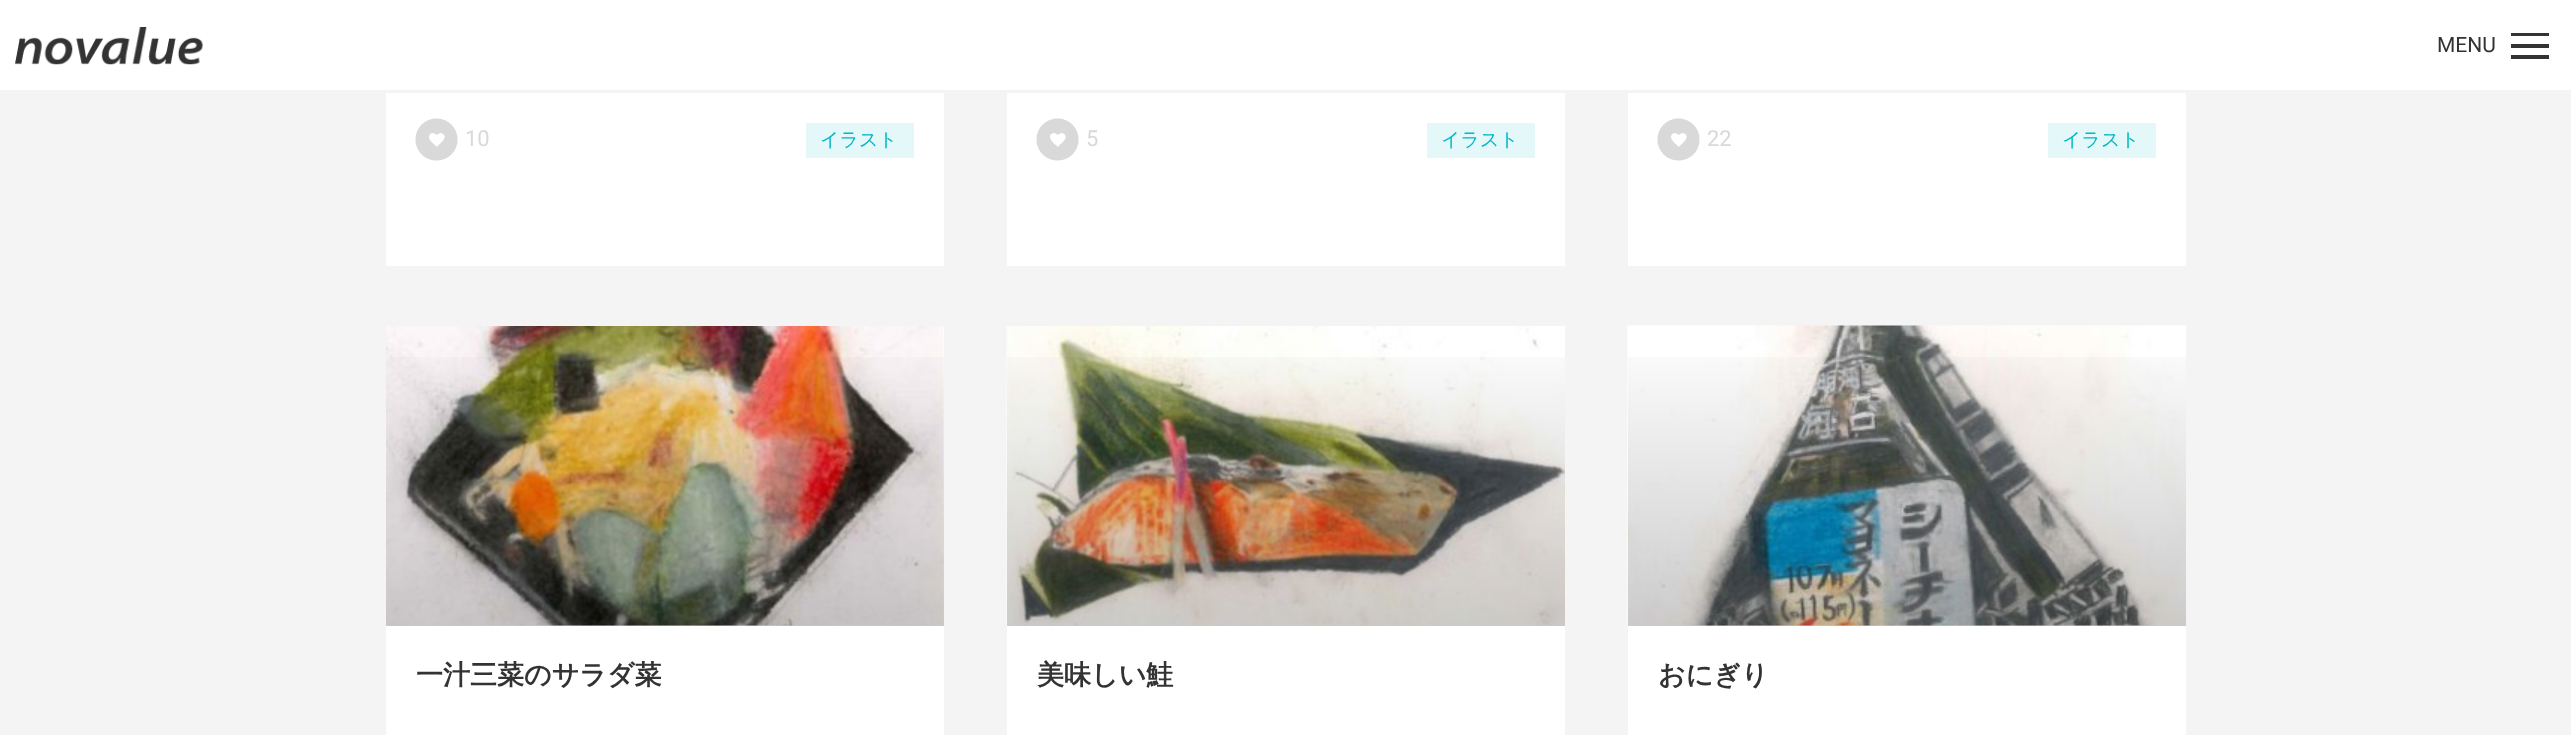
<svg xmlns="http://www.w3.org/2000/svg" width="2571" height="735">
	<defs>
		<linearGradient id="g1" gradientUnits="userSpaceOnUse" x1="665" y1="325" x2="665" y2="626"><stop offset="0" stop-color="#000000" stop-opacity="0" /><stop offset="1" stop-color="#000000" stop-opacity="0.2" /></linearGradient>
		<linearGradient id="g2" gradientUnits="userSpaceOnUse" x1="1286" y1="325" x2="1286" y2="626"><stop offset="0" stop-color="#000000" stop-opacity="0" /><stop offset="1" stop-color="#000000" stop-opacity="0.2" /></linearGradient>
		<linearGradient id="g3" gradientUnits="userSpaceOnUse" x1="1907" y1="325" x2="1907" y2="626"><stop offset="0" stop-color="#000000" stop-opacity="0" /><stop offset="1" stop-color="#000000" stop-opacity="0.2" /></linearGradient>
	</defs>
	<rect width="100%" height="100%" fill="#F4F4F4" />
	<rect x="0" y="0" width="2571" height="90" fill="#FFFFFF" />
	<image x="15" y="27" width="188" height="38" href="assets/img1.png" />
	<text x="2437" y="52" font-family="Roboto" font-size="21" fill="#333333">MENU</text>
	<rect x="2511" y="33" width="38" height="3" fill="#333333" />
	<rect x="2511" y="44" width="38" height="4" fill="#333333" />
	<rect x="2511" y="55" width="38" height="4" fill="#333333" />
	<rect x="386" y="93" width="558" height="173" fill="#FFFFFF" />
	<image x="415" y="118" width="43" height="43" href="assets/img2.png" />
	<text x="465" y="146" font-family="Roboto" font-size="22" fill="#D9D9D9">10</text>
	<rect x="806" y="123" width="108" height="35" fill="#E5F8F9" />
	<text x="820" y="146" font-family="WenQuanYi Zen Hei" font-size="19" font-weight="500" fill="#00B8C7">イラスト</text>
	<rect x="1007" y="93" width="558" height="173" fill="#FFFFFF" />
	<image x="1036" y="118" width="43" height="43" href="assets/img3.png" />
	<text x="1086" y="146" font-family="Roboto" font-size="22" fill="#D9D9D9">5</text>
	<rect x="1427" y="123" width="108" height="35" fill="#E5F8F9" />
	<text x="1441" y="146" font-family="WenQuanYi Zen Hei" font-size="19" font-weight="500" fill="#00B8C7">イラスト</text>
	<rect x="1628" y="93" width="558" height="173" fill="#FFFFFF" />
	<image x="1657" y="118" width="43" height="43" href="assets/img3.png" />
	<text x="1707" y="146" font-family="Roboto" font-size="22" fill="#D9D9D9">22</text>
	<rect x="2048" y="123" width="108" height="35" fill="#E5F8F9" />
	<text x="2062" y="146" font-family="WenQuanYi Zen Hei" font-size="19" font-weight="500" fill="#00B8C7">イラスト</text>
	<rect x="386" y="326" width="558" height="409" fill="#FFFFFF" />
	<image x="386" y="326" width="558" height="300" href="assets/img4.png" />
	<rect x="386" y="357" width="558" height="269" fill="url(#g1)" />
	<text x="416" y="684" font-family="WenQuanYi Zen Hei" font-size="27" font-weight="700" fill="#333333">一汁三菜のサラダ菜</text>
	<rect x="1007" y="625" width="558" height="110" fill="#FFFFFF" />
	<image x="1006" y="326" width="559" height="300" href="assets/img5.png" />
	<rect x="1007" y="357" width="558" height="269" fill="url(#g2)" />
	<text x="1037" y="684" font-family="WenQuanYi Zen Hei" font-size="27" font-weight="700" fill="#333333">美味しい鮭</text>
	<rect x="1628" y="326" width="558" height="409" fill="#FFFFFF" />
	<image x="1627" y="325" width="559" height="301" href="assets/img6.png" />
	<rect x="1628" y="357" width="558" height="269" fill="url(#g3)" />
	<text x="1658" y="684" font-family="WenQuanYi Zen Hei" font-size="27" font-weight="700" fill="#333333">おにぎり</text>
</svg>
